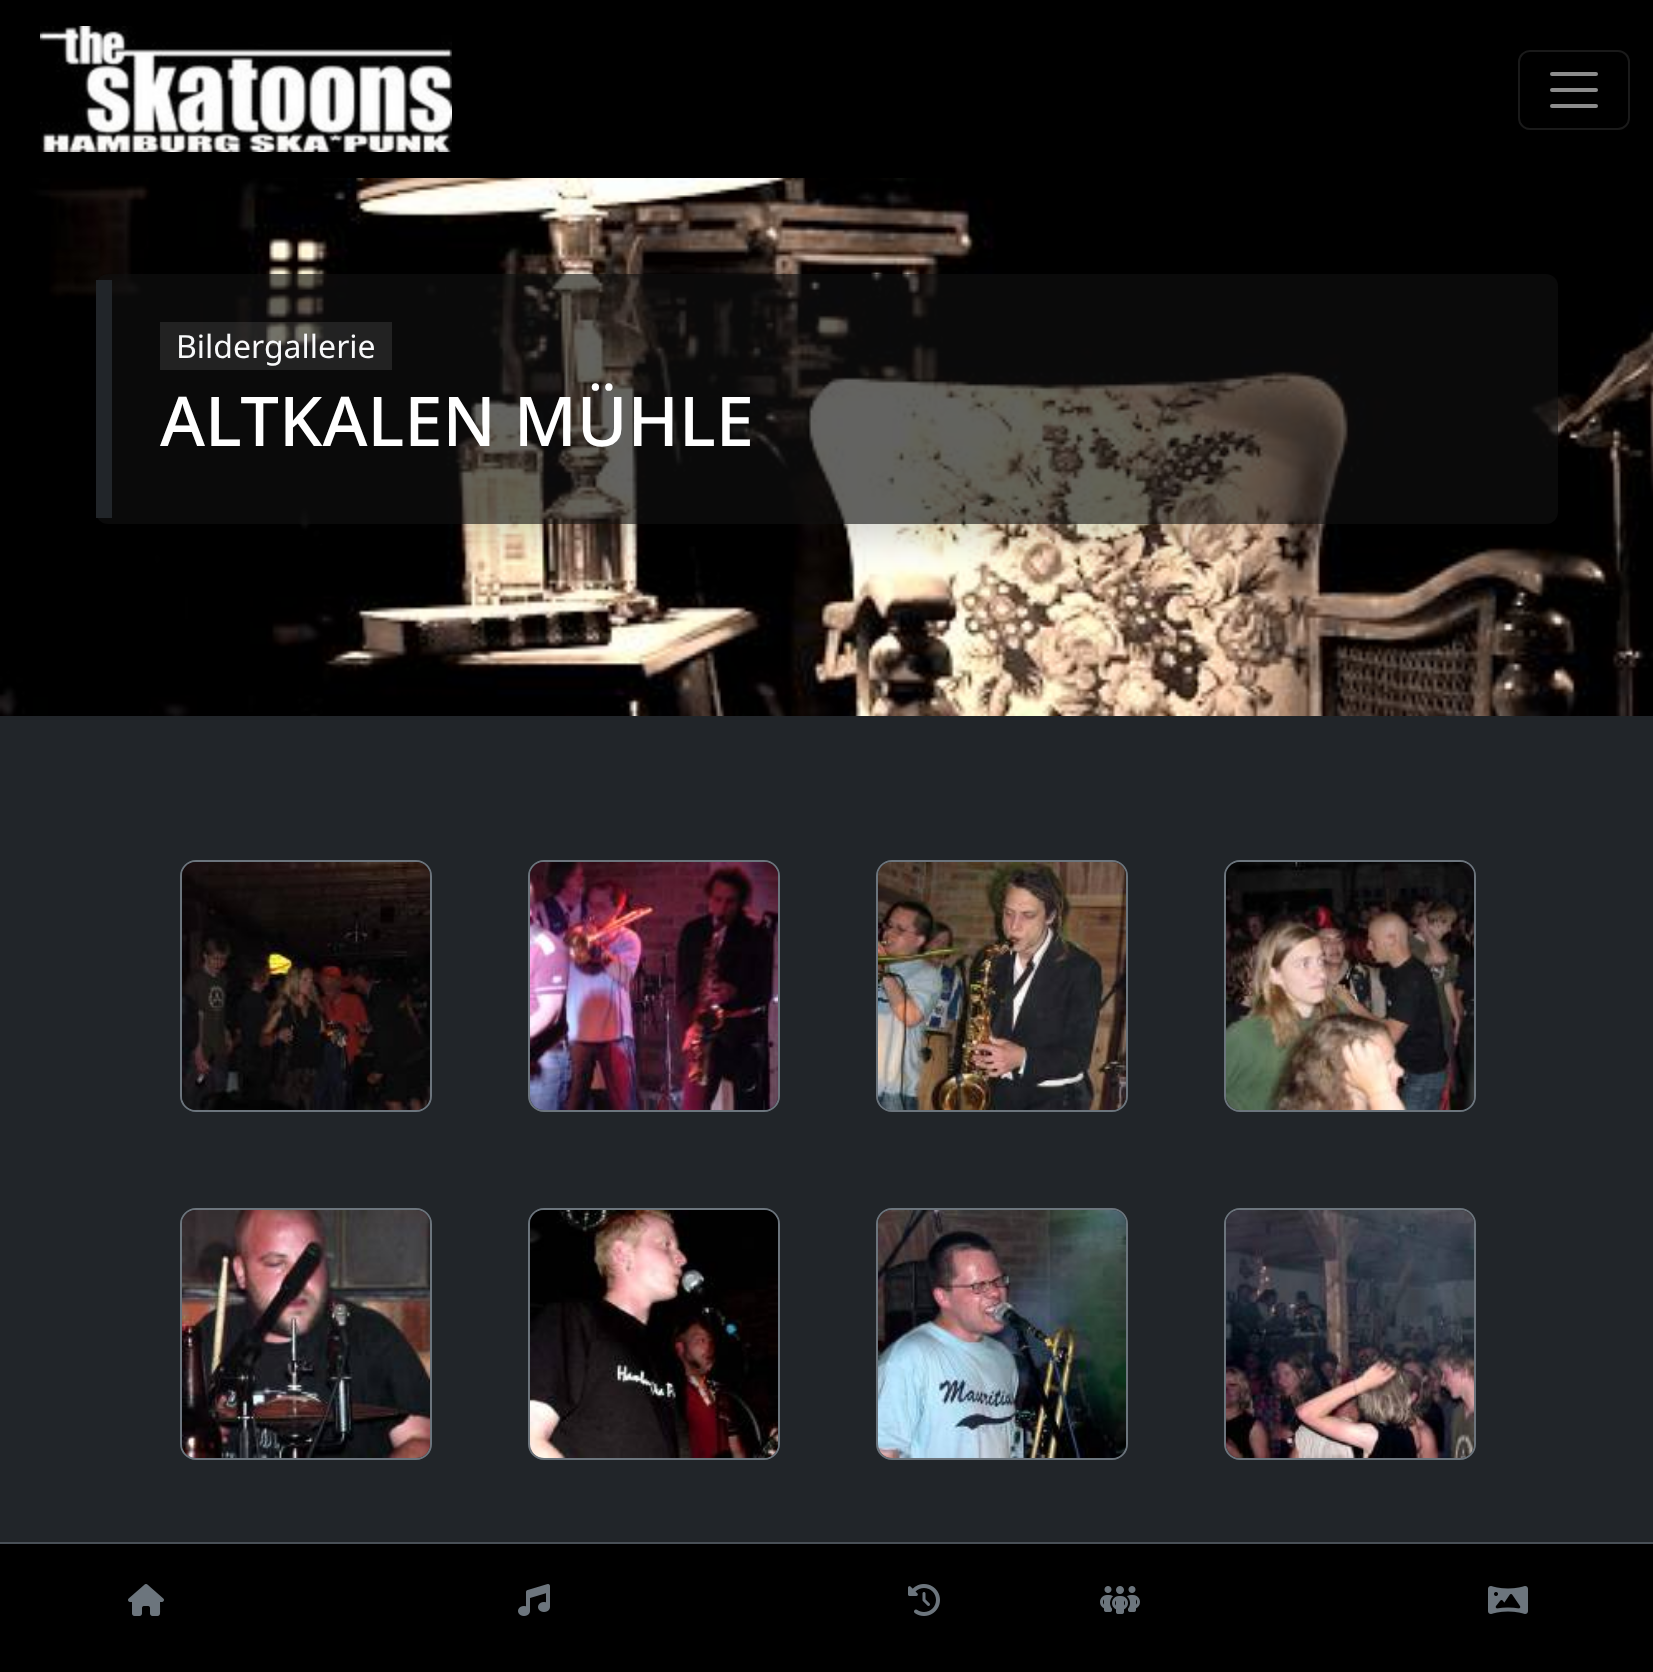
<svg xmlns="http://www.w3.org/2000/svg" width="1653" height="1672">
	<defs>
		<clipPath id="clip1"><path d="M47 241H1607V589H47ZM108 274H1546C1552.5 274 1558 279.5 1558 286V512C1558 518.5 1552.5 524 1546 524H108C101.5 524 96 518.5 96 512V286C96 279.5 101.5 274 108 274Z" clip-rule="evenodd" /></clipPath>
	</defs>
	<rect width="100%" height="100%" fill="#212529" />
	<rect x="0" y="0" width="1653" height="178" fill="#000000" />
	<image x="40" y="26" width="412" height="126" href="assets/img1.png" />
	<rect x="1519" y="51" width="110" height="78" rx="11" fill="none" stroke="#1A1A1A" stroke-width="2" />
	<path d="M1552 74H1596M1552 90H1596M1552 106H1596" fill="none" stroke="#8C8C8C" stroke-width="4" stroke-linecap="round" />
	<image x="0" y="178" width="1653" height="538" href="assets/img2.png" />
	<g clip-path="url(#clip1)">
		<rect x="96" y="290" width="1462" height="250" rx="12" fill="#000000" fill-opacity="0.15" filter="blur(16px)" />
	</g>
	<rect x="96" y="274" width="1462" height="250" rx="12" fill="#0F0F0F" fill-opacity="0.65" />
	<rect x="96" y="280" width="16" height="238" fill="#212529" />
	<rect x="160" y="322" width="232" height="48" fill="#FFFFFF" fill-opacity="0.1" />
	<text x="176" y="358" font-family="Noto Sans" font-size="32" fill="#F8F9FA">Bildergallerie</text>
	<text x="160" y="446" font-family="Noto Sans" font-size="68.75" font-weight="500" fill="#FFFFFF">ALTKALEN MÜHLE</text>
	<rect x="181" y="861" width="250" height="250" rx="15" fill="none" stroke="#6C757D" stroke-width="2" />
	<image x="182" y="862" width="248" height="248" href="assets/img3.png" />
	<rect x="529" y="861" width="250" height="250" rx="15" fill="none" stroke="#6C757D" stroke-width="2" />
	<image x="530" y="862" width="248" height="248" href="assets/img4.png" />
	<rect x="877" y="861" width="250" height="250" rx="15" fill="none" stroke="#6C757D" stroke-width="2" />
	<image x="878" y="862" width="248" height="248" href="assets/img5.png" />
	<rect x="1225" y="861" width="250" height="250" rx="15" fill="none" stroke="#6C757D" stroke-width="2" />
	<image x="1226" y="862" width="248" height="248" href="assets/img6.png" />
	<rect x="181" y="1209" width="250" height="250" rx="15" fill="none" stroke="#6C757D" stroke-width="2" />
	<image x="182" y="1210" width="248" height="248" href="assets/img7.png" />
	<rect x="529" y="1209" width="250" height="250" rx="15" fill="none" stroke="#6C757D" stroke-width="2" />
	<image x="530" y="1210" width="248" height="248" href="assets/img8.png" />
	<rect x="877" y="1209" width="250" height="250" rx="15" fill="none" stroke="#6C757D" stroke-width="2" />
	<image x="878" y="1210" width="248" height="248" href="assets/img9.png" />
	<rect x="1225" y="1209" width="250" height="250" rx="15" fill="none" stroke="#6C757D" stroke-width="2" />
	<image x="1226" y="1210" width="248" height="248" href="assets/img10.png" />
	<rect x="0" y="1544" width="1653" height="128" fill="#000000" />
	<rect x="0" y="1542" width="1653" height="2" fill="#495057" />
	<image x="128" y="1584" width="36" height="32" href="assets/img11.png" />
	<image x="518" y="1584" width="32" height="32" href="assets/img12.png" />
	<image x="908" y="1584" width="32" height="32" href="assets/img13.png" />
	<image x="1100" y="1586" width="40" height="28" href="assets/img14.png" />
	<image x="1488" y="1586" width="40" height="28" href="assets/img15.png" />
</svg>
